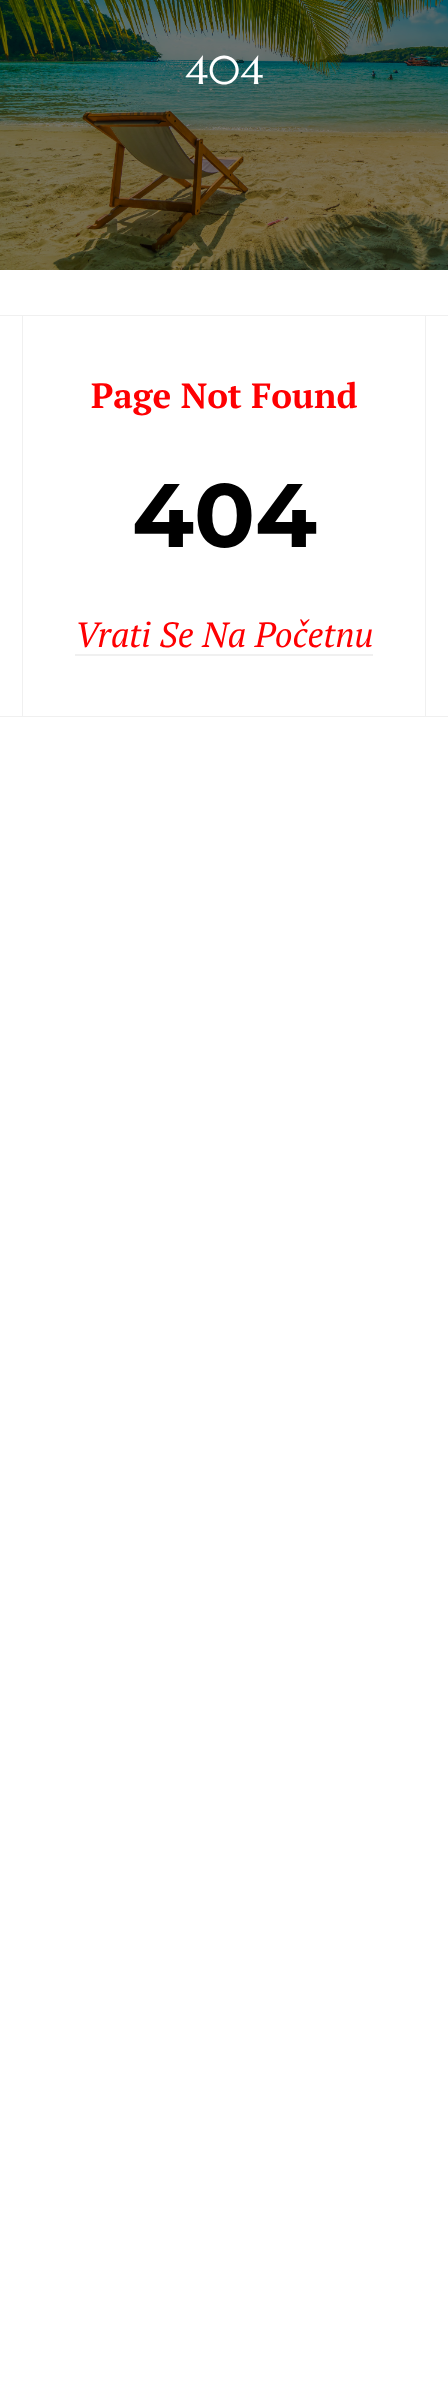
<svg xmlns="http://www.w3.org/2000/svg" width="448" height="2384">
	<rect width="100%" height="100%" fill="#FFFFFF" />
	<image x="0" y="0" width="448" height="270" href="assets/img1.png" />
	<text x="185" y="84" font-family="Marcellus" font-size="40" fill="#FFFFFF">404</text>
	<rect x="0" y="315" width="448" height="1" fill="#F0F0F0" />
	<rect x="0" y="716" width="448" height="1" fill="#F0F0F0" />
	<rect x="425" y="316" width="1" height="400" fill="#F0F0F0" />
	<rect x="22" y="316" width="1" height="400" fill="#F0F0F0" />
	<text x="91" y="408" font-family="PT Serif" font-size="35" font-weight="700" fill="#FE0002">Page Not Found</text>
	<text x="132" y="547" font-family="Montserrat" font-size="90" font-weight="700" fill="#000000">404</text>
	<rect x="75" y="654" width="298" height="2" fill="#F0F0F0" />
	<text x="75" y="647" font-family="PT Serif" font-size="35" font-style="italic" fill="#FE0002">Vrati Se Na Početnu</text>
</svg>
